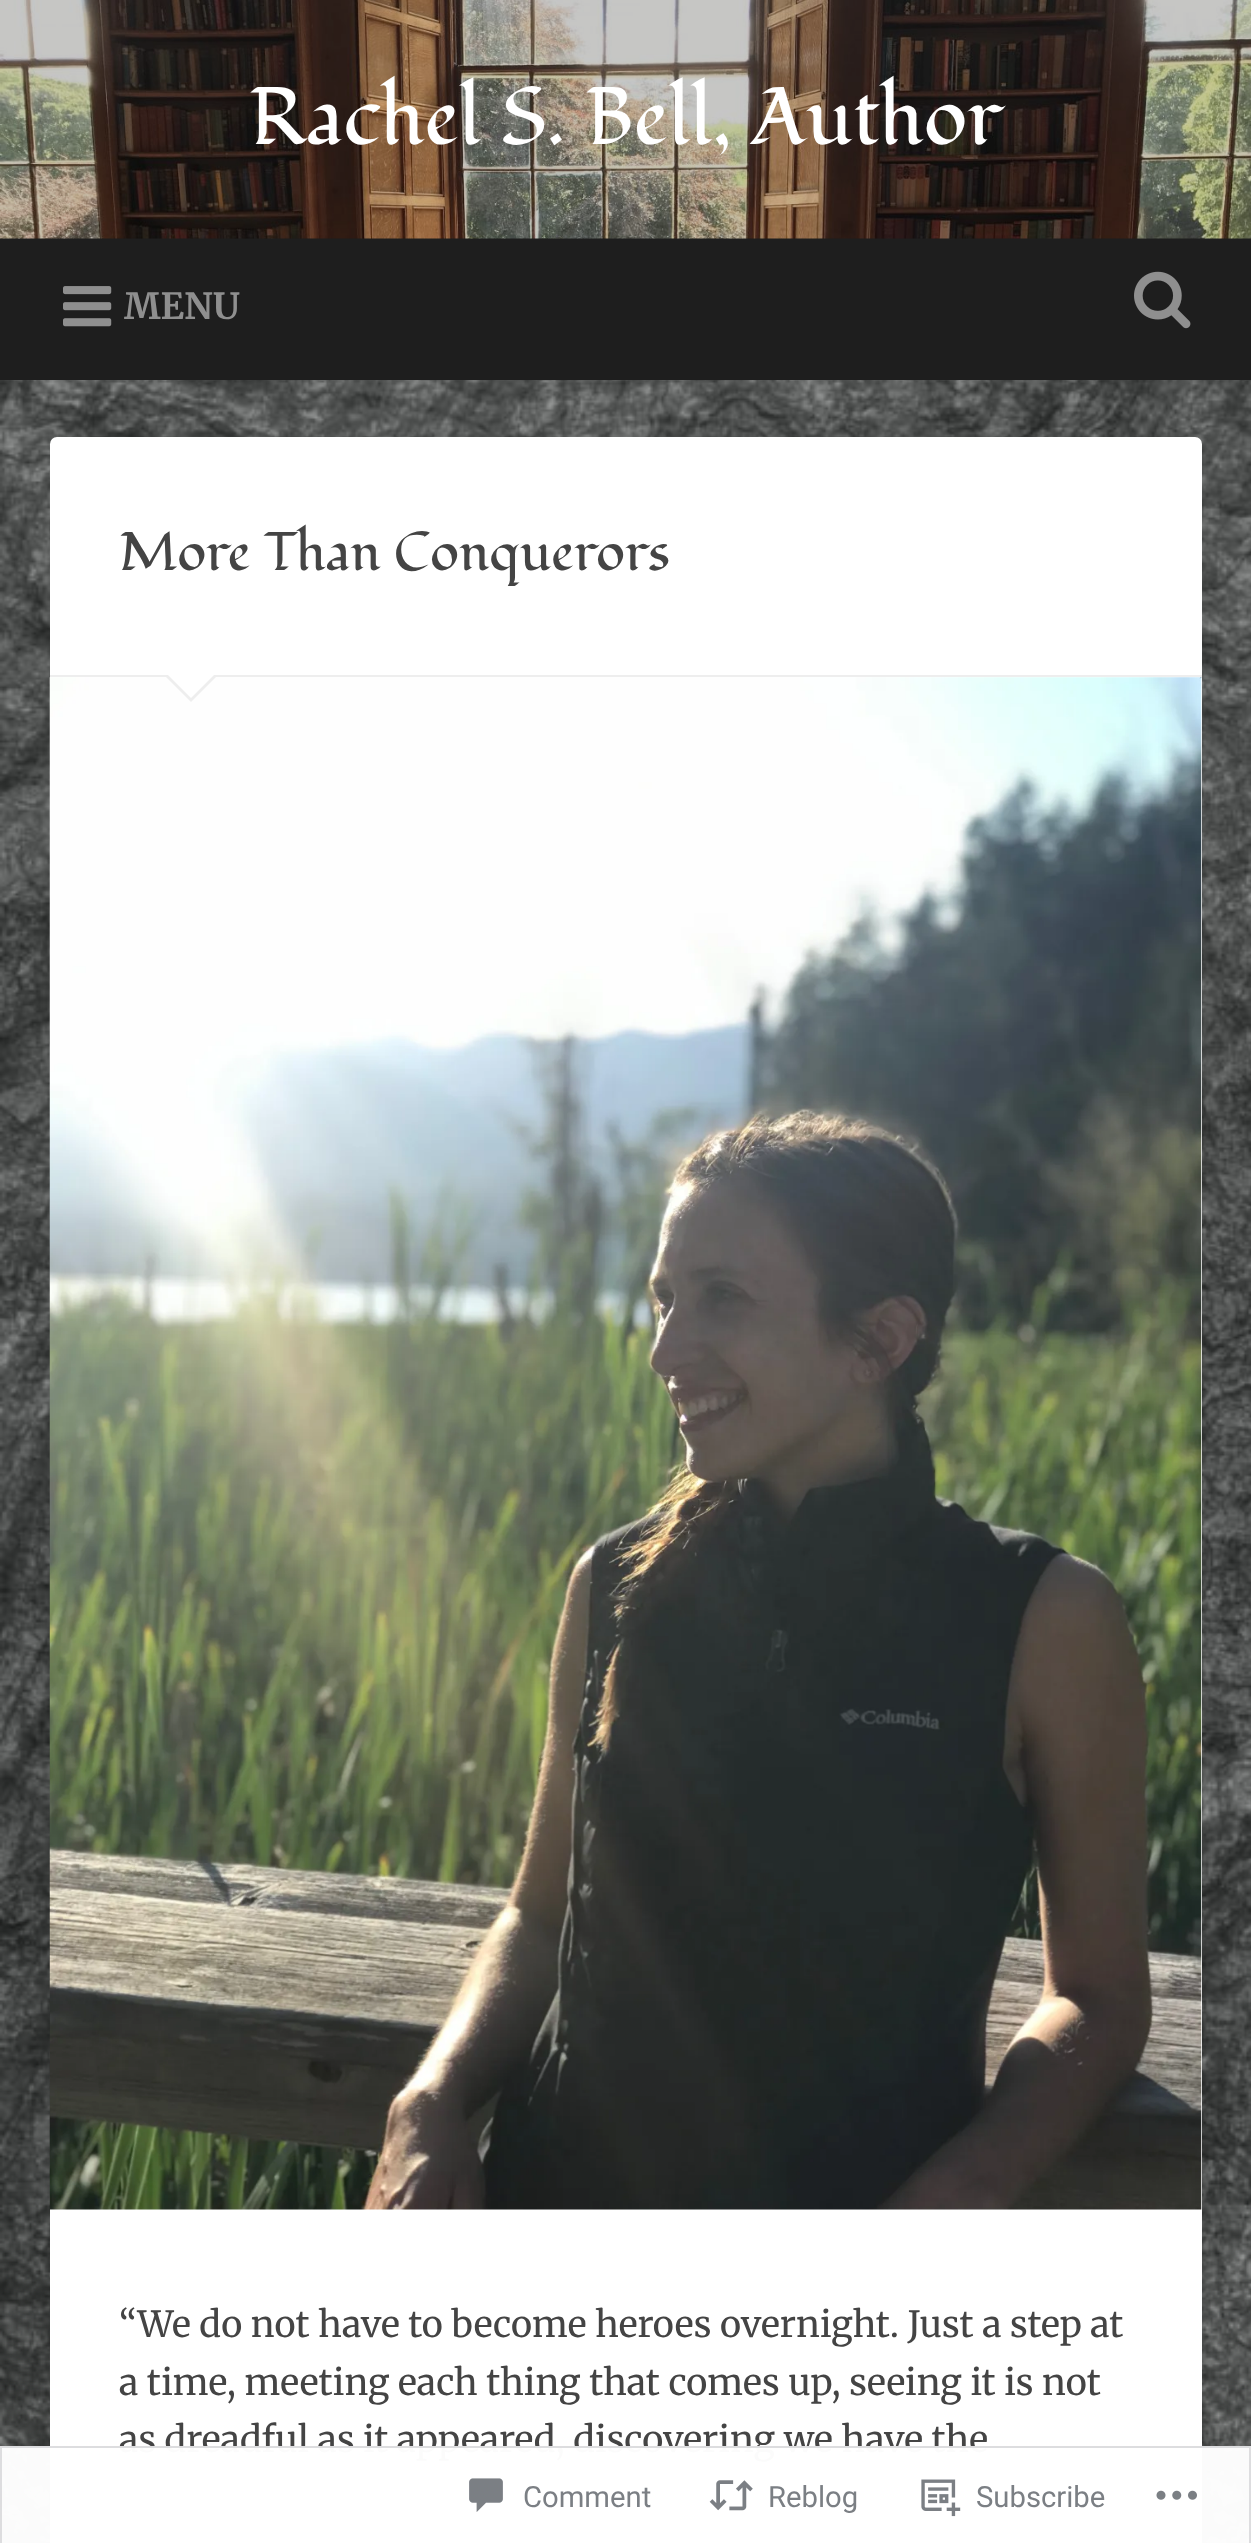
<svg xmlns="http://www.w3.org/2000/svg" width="1251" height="2543">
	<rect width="100%" height="100%" fill="#FFFFFF" />
	<image x="0" y="380" width="1251" height="2163" href="assets/img1.png" />
	<rect x="0" y="238" width="1251" height="142" fill="#1E1E1E" />
	<image x="0" y="0" width="1251" height="239" href="assets/img2.png" />
	<rect x="0" y="0" width="1251" height="239" fill="#1D1D1D" fill-opacity="0.25" />
	<text x="249" y="144" font-family="Fondamento" font-size="81" fill="#FFFFFF">Rachel S. Bell, Author</text>
	<image x="63" y="286" width="49" height="41" href="assets/img3.png" />
	<text x="124" y="319" font-family="Merriweather" font-size="36" font-weight="700" fill="#8F8F8F">MENU</text>
	<image x="1134" y="271" width="57" height="58" href="assets/img4.png" />
	<rect x="50" y="439" width="1152" height="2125" rx="7" fill="#000000" fill-opacity="0.1" filter="blur(4.5px)" />
	<rect x="50" y="437" width="1152" height="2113" rx="7" fill="#FFFFFF" />
	<rect x="50" y="675" width="1152" height="2" fill="#EEEEEE" />
	<text x="119" y="570" font-family="Fondamento" font-size="54" fill="#444444">More Than Conquerors</text>
	<image x="49" y="677" width="1153" height="1533" href="assets/img5.png" />
	<path d="M164 675H218L191 702Z" fill="#EEEEEE" />
	<path d="M166 673H216L191 698Z" fill="#FFFFFF" />
	<g font-family="Merriweather" font-size="36" fill="#444444">
		<text x="119" y="2337">“We do not have to become heroes overnight. Just a step at</text>
		<text x="119" y="2395">a time, meeting each thing that comes up, seeing it is not</text>
		<text x="119" y="2452">as dreadful as it appeared, discovering we have the</text>
	</g>
	<rect x="0" y="2446" width="1251" height="97" fill="#FFFFFF" fill-opacity="0.98" />
	<rect x="1" y="2447" width="1249" height="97" fill="none" stroke="#DCDCDE" stroke-opacity="0.98" stroke-width="2" />
	<image x="469" y="2478" width="34" height="34" href="assets/img6.png" />
	<text x="523" y="2507" font-family="Roboto" font-size="29.25" fill="#7B7F84">Comment</text>
	<image x="709" y="2480" width="44" height="31" href="assets/img7.png" />
	<text x="768" y="2507" font-family="Roboto" font-size="29.25" fill="#7B7F84">Reblog</text>
	<image x="921" y="2479" width="40" height="38" href="assets/img8.png" />
	<text x="976" y="2507" font-family="Roboto" font-size="29.25" fill="#7B7F84">Subscribe</text>
	<image x="1156" y="2490" width="41" height="10" href="assets/img9.png" />
</svg>
